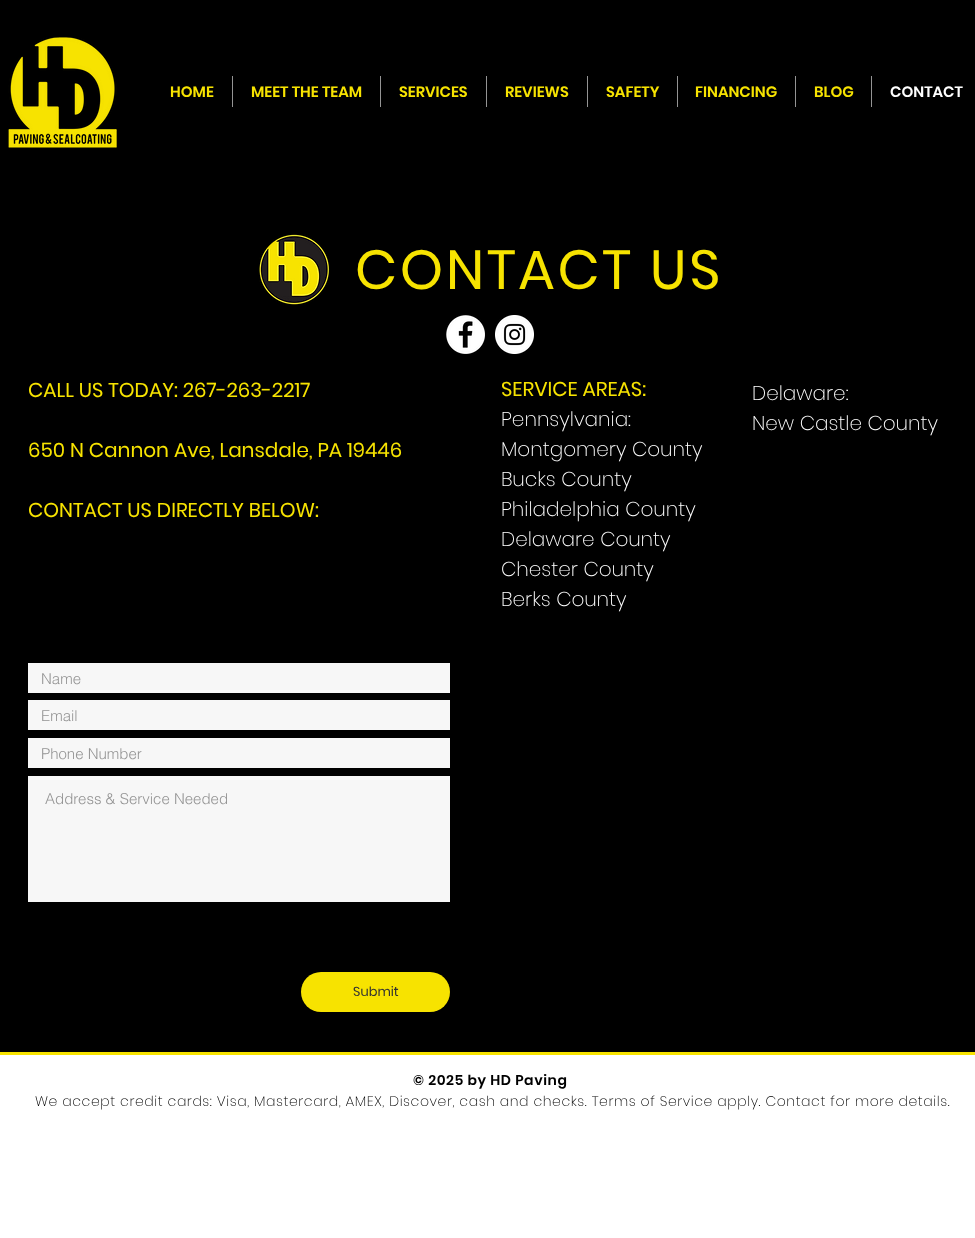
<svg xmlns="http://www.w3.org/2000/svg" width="975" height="1238">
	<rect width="100%" height="100%" fill="#FFFFFF" />
	<rect x="0" y="0" width="975" height="1052" fill="#000000" />
	<image x="8" y="37" width="109" height="111" href="assets/img1.png" />
	<text x="170" y="97" font-family="Poppins" font-size="15" font-weight="600" fill="#F7E300">HOME</text>
	<rect x="232" y="76" width="1" height="31" fill="#949494" />
	<text x="251" y="97" font-family="Poppins" font-size="15" font-weight="600" fill="#F7E300">MEET THE TEAM</text>
	<rect x="380" y="76" width="1" height="31" fill="#949494" />
	<text x="399" y="97" font-family="Poppins" font-size="15" font-weight="600" fill="#F7E300">SERVICES</text>
	<rect x="486" y="76" width="1" height="31" fill="#949494" />
	<text x="505" y="97" font-family="Poppins" font-size="15" font-weight="600" fill="#F7E300">REVIEWS</text>
	<rect x="587" y="76" width="1" height="31" fill="#949494" />
	<text x="606" y="97" font-family="Poppins" font-size="15" font-weight="600" fill="#F7E300">SAFETY</text>
	<rect x="677" y="76" width="1" height="31" fill="#949494" />
	<text x="695" y="97" font-family="Poppins" font-size="15" font-weight="600" fill="#F7E300">FINANCING</text>
	<rect x="795" y="76" width="1" height="31" fill="#949494" />
	<text x="814" y="97" font-family="Poppins" font-size="15" font-weight="600" fill="#F7E300">BLOG</text>
	<rect x="871" y="76" width="1" height="31" fill="#949494" />
	<text x="890" y="97" font-family="Poppins" font-size="15" font-weight="600" fill="#FFFFFF">CONTACT</text>
	<image x="259" y="234" width="71" height="71" href="assets/img2.png" />
	<text x="355" y="289" font-family="Poppins" font-size="55" letter-spacing="2.75" fill="#F7E300">CONTACT US</text>
	<image x="446" y="315" width="39" height="39" href="assets/img3.png" />
	<image x="495" y="315" width="39" height="39" href="assets/img4.png" />
	<text x="501" y="396" font-family="Poppins" font-size="20" fill="#F7E300">SERVICE AREAS:</text>
	<g font-family="Poppins" font-size="20" font-weight="200" fill="#FFFFFF">
		<text x="501" y="426">Pennsylvania:</text>
		<text x="501" y="456">Montgomery County</text>
		<text x="501" y="486">Bucks County</text>
		<text x="501" y="516">Philadelphia County</text>
		<text x="501" y="546">Delaware County</text>
		<text x="501" y="576">Chester County</text>
		<text x="501" y="606">Berks County</text>
		<text x="752" y="400">Delaware:</text>
		<text x="752" y="430">New Castle County</text>
	</g>
	<rect x="28" y="663" width="422" height="30" fill="#F7F7F7" />
	<text x="41" y="684" font-family="helvetica" font-size="15" font-weight="300" fill="#949494">Name</text>
	<rect x="28" y="700" width="422" height="30" fill="#F7F7F7" />
	<text x="41" y="721" font-family="helvetica" font-size="15" font-weight="300" fill="#949494">Email</text>
	<rect x="28" y="738" width="422" height="30" fill="#F7F7F7" />
	<text x="41" y="759" font-family="helvetica" font-size="15" font-weight="300" fill="#949494">Phone Number</text>
	<rect x="28" y="776" width="422" height="126" fill="#F7F7F7" />
	<text x="45" y="804" font-family="helvetica" font-size="15" font-weight="300" fill="#949494">Address &amp; Service Needed</text>
	<rect x="301" y="972" width="149" height="40" rx="20" fill="#F7E300" />
	<text x="353" y="996" font-family="Poppins" font-size="13" fill="#323232">Submit</text>
	<g font-family="Poppins" font-size="20" fill="#F7E300">
		<text x="28" y="397">CALL US TODAY: 267-263-2217</text>
		<text x="28" y="457">650 N Cannon Ave, Lansdale, PA 19446</text>
		<text x="28" y="517">CONTACT US DIRECTLY BELOW:</text>
	</g>
	<rect x="0" y="1052" width="975" height="3" fill="#F7E300" />
	<text x="413" y="1085" font-family="Poppins" font-size="14" font-weight="600" letter-spacing="0.56" fill="#000000">© 2025 by HD Paving</text>
	<text x="35" y="1106" font-family="Poppins" font-size="14" font-weight="200" letter-spacing="0.56" fill="#000000">We accept credit cards: Visa, Mastercard, AMEX, Discover, cash and checks. Terms of Service apply. Contact for more details.</text>
</svg>
